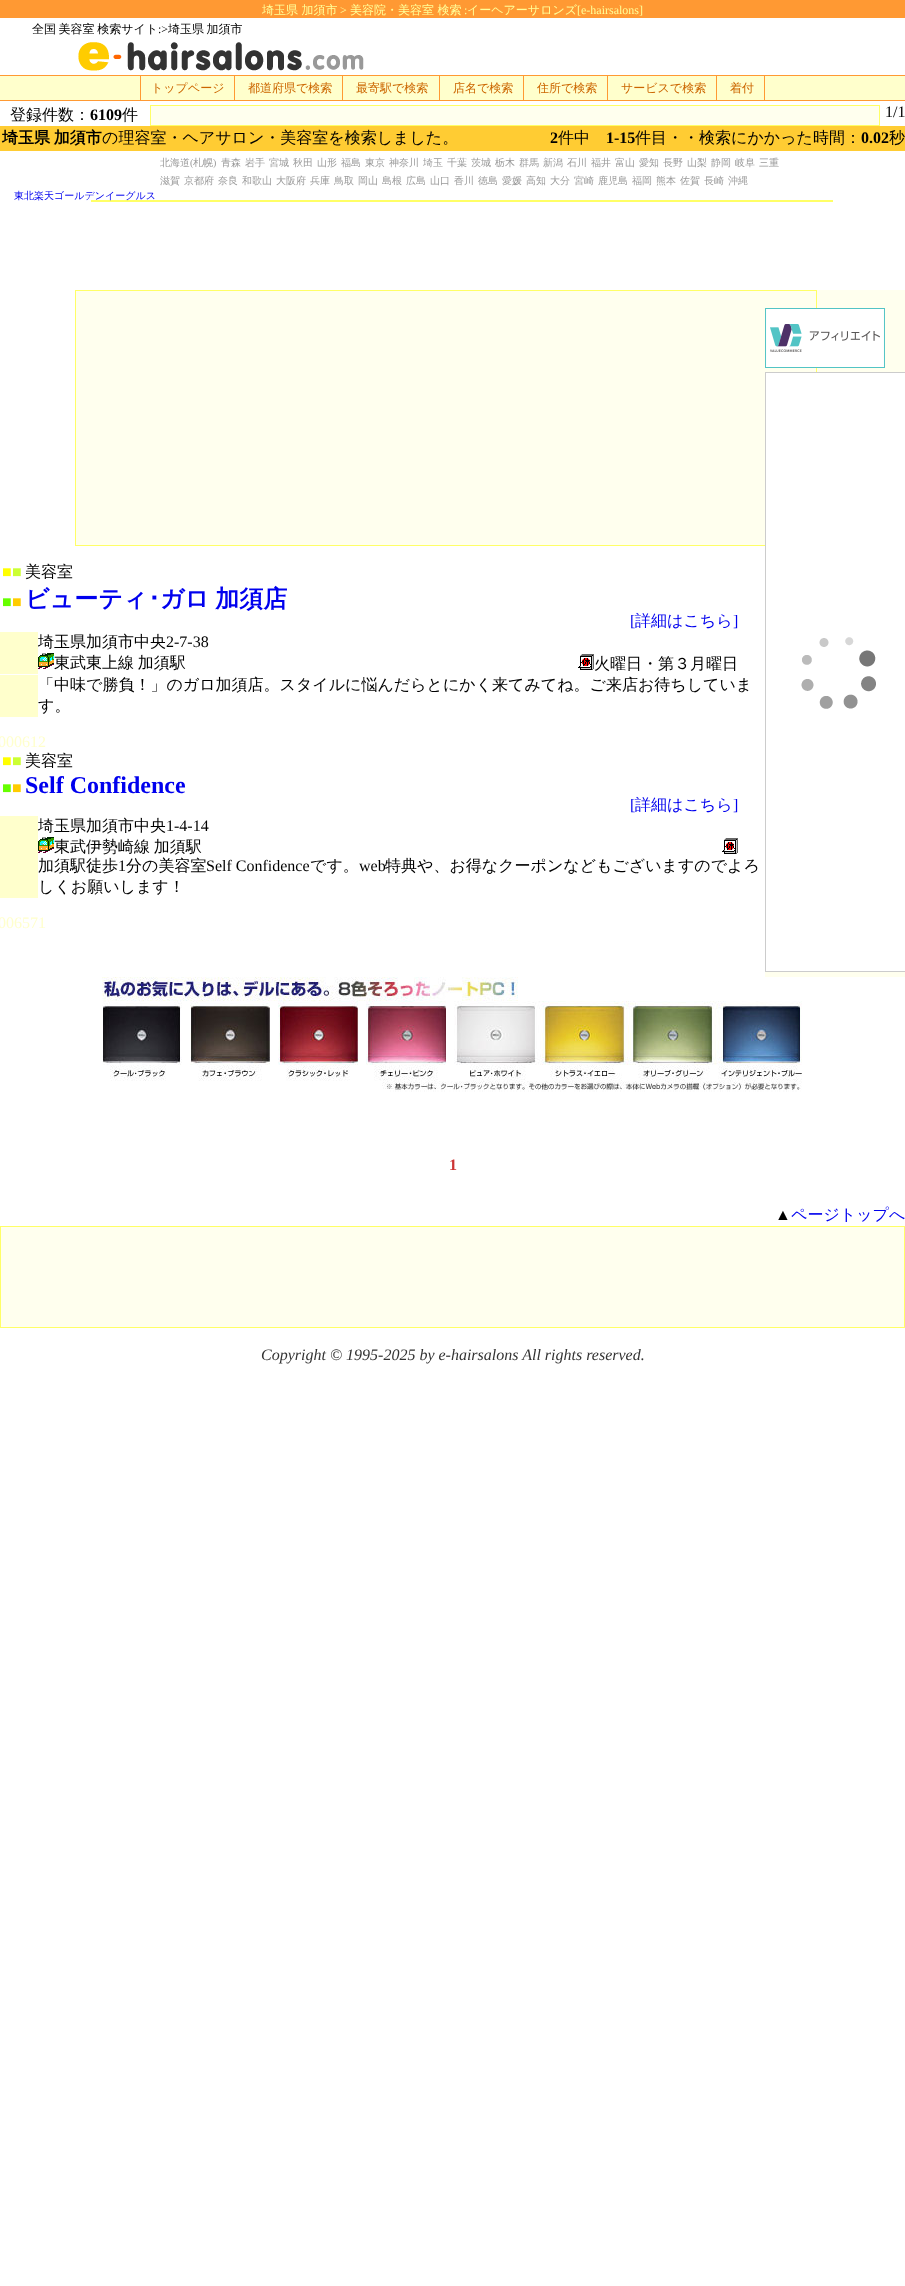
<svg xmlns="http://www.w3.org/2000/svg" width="905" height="2286">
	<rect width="100%" height="100%" fill="#FFFFFF" />
	<rect x="0" y="0" width="905" height="18" fill="#FF9933" />
	<text x="262" y="14" font-family="WenQuanYi Zen Hei" font-size="12" font-weight="500" fill="#FFFF99">埼玉県 加須市</text>
	<text x="340" y="14" font-family="Liberation Serif" font-size="12" fill="#FFFF99">&gt;</text>
	<text x="350" y="14" font-family="WenQuanYi Zen Hei" font-size="12" font-weight="500" fill="#FFFF99">美容院・美容室 検索</text>
	<text x="464" y="14" font-family="Liberation Serif" font-size="12" fill="#FFFF99">:</text>
	<text x="467" y="14" font-family="WenQuanYi Zen Hei" font-size="12" font-weight="500" fill="#FFFF99">イーヘアーサロンズ</text>
	<text x="577" y="14" font-family="Liberation Serif" font-size="12" fill="#FFFF99">[e-hairsalons]</text>
	<text x="32" y="33" word-spacing="-1" font-family="WenQuanYi Zen Hei" font-size="12" font-weight="500" fill="#000000">全国 美容室 検索サイト</text>
	<text x="158" y="33" font-family="Liberation Serif" font-size="12" fill="#000000">:&gt;</text>
	<text x="168" y="33" word-spacing="-1" font-family="WenQuanYi Zen Hei" font-size="12" font-weight="500" fill="#000000">埼玉県 加須市</text>
	<image x="78" y="42" width="286" height="29" href="assets/img1.png" />
	<text x="10" y="120" font-family="WenQuanYi Zen Hei" font-size="16" font-weight="500" fill="#000000">登録件数：</text>
	<text x="90" y="120" font-family="Liberation Serif" font-size="16" font-weight="700" fill="#000000">6109</text>
	<text x="122" y="120" font-family="WenQuanYi Zen Hei" font-size="16" font-weight="500" fill="#000000">件</text>
	<text x="885" y="117" font-family="Liberation Serif" font-size="16" fill="#000000">1/1</text>
	<rect x="0" y="126" width="905" height="25" fill="#FFCC33" />
	<text x="2" y="143" word-spacing="-1" font-family="WenQuanYi Zen Hei" font-size="16" font-weight="700" fill="#000000">埼玉県 加須市</text>
	<text x="102" y="143" font-family="WenQuanYi Zen Hei" font-size="16" font-weight="500" fill="#000000">の理容室・ヘアサロン・美容室を検索しました。</text>
	<text x="550" y="143" font-family="Liberation Serif" font-size="16" font-weight="700" fill="#000000">2</text>
	<text x="558" y="143" font-family="WenQuanYi Zen Hei" font-size="16" font-weight="500" fill="#000000">件中</text>
	<text x="606" y="143" font-family="Liberation Serif" font-size="16" font-weight="700" fill="#000000">1-15</text>
	<text x="635" y="143" font-family="WenQuanYi Zen Hei" font-size="16" font-weight="500" fill="#000000">件目・・検索にかかった時間：</text>
	<text x="861" y="143" font-family="Liberation Serif" font-size="16" font-weight="700" fill="#000000">0.02</text>
	<text x="889" y="143" font-family="WenQuanYi Zen Hei" font-size="16" font-weight="500" fill="#000000">秒</text>
	<rect x="0" y="76" width="905" height="24" fill="#FFFFCC" />
	<rect x="0" y="75" width="905" height="1" fill="#FF9933" />
	<rect x="0" y="100" width="905" height="1" fill="#FF9933" />
	<text x="151" y="92" font-family="WenQuanYi Zen Hei" font-size="12" font-weight="500" fill="#CC6600">トップページ</text>
	<rect x="140" y="76" width="1" height="24" fill="#FF9933" />
	<rect x="234" y="76" width="1" height="24" fill="#FF9933" />
	<text x="248" y="92" font-family="WenQuanYi Zen Hei" font-size="12" font-weight="500" fill="#CC6600">都道府県で検索</text>
	<rect x="342" y="76" width="1" height="24" fill="#FF9933" />
	<text x="356" y="92" font-family="WenQuanYi Zen Hei" font-size="12" font-weight="500" fill="#CC6600">最寄駅で検索</text>
	<rect x="439" y="76" width="1" height="24" fill="#FF9933" />
	<text x="453" y="92" font-family="WenQuanYi Zen Hei" font-size="12" font-weight="500" fill="#CC6600">店名で検索</text>
	<rect x="523" y="76" width="1" height="24" fill="#FF9933" />
	<text x="537" y="92" font-family="WenQuanYi Zen Hei" font-size="12" font-weight="500" fill="#CC6600">住所で検索</text>
	<rect x="607" y="76" width="1" height="24" fill="#FF9933" />
	<text x="621" y="92" font-family="WenQuanYi Zen Hei" font-size="12" font-weight="500" fill="#CC6600">サービスで検索</text>
	<rect x="716" y="76" width="1" height="24" fill="#FF9933" />
	<text x="730" y="92" font-family="WenQuanYi Zen Hei" font-size="12" font-weight="500" fill="#CC6600">着付</text>
	<rect x="764" y="76" width="1" height="24" fill="#FF9933" />
	<image x="102" y="977" width="700" height="115" href="assets/img2.png" />
	<text x="449" y="1170" font-family="Liberation Serif" font-size="16" font-weight="700" fill="#CC3434">1</text>
	<text x="775" y="1220" font-family="Liberation Serif" font-size="16" fill="#000000">▲</text>
	<text x="791" y="1220" font-family="WenQuanYi Zen Hei" font-size="16" font-weight="500" fill="#0000EE">ページトップへ</text>
	<rect x="0" y="1226" width="905" height="102" fill="#FFFF66" />
	<rect x="1" y="1227" width="903" height="100" fill="#FFFFEE" />
	<text x="261" y="1360" font-family="Liberation Serif" font-size="16" font-style="italic" fill="#333333">Copyright © 1995-2025 by e-hairsalons All rights reserved.</text>
	<rect x="765" y="290" width="140" height="687" fill="#FFFFEE" />
	<text x="160" y="166" font-family="WenQuanYi Zen Hei" font-size="10" font-weight="500" fill="#999999">北海道</text>
	<text x="190" y="166" font-family="Liberation Serif" font-size="10" fill="#999999">(</text>
	<text x="193" y="166" font-family="WenQuanYi Zen Hei" font-size="10" font-weight="500" fill="#999999">札幌</text>
	<text x="213" y="166" font-family="Liberation Serif" font-size="10" fill="#999999">)</text>
	<g font-family="WenQuanYi Zen Hei" font-size="10" font-weight="500" fill="#999999">
		<text x="221" y="166">青森</text>
		<text x="245" y="166">岩手</text>
		<text x="269" y="166">宮城</text>
		<text x="293" y="166">秋田</text>
		<text x="317" y="166">山形</text>
		<text x="341" y="166">福島</text>
		<text x="365" y="166">東京</text>
		<text x="389" y="166">神奈川</text>
		<text x="423" y="166">埼玉</text>
		<text x="447" y="166">千葉</text>
		<text x="471" y="166">茨城</text>
		<text x="495" y="166">栃木</text>
		<text x="519" y="166">群馬</text>
		<text x="543" y="166">新潟</text>
		<text x="567" y="166">石川</text>
		<text x="591" y="166">福井</text>
		<text x="615" y="166">富山</text>
		<text x="639" y="166">愛知</text>
		<text x="663" y="166">長野</text>
		<text x="687" y="166">山梨</text>
		<text x="711" y="166">静岡</text>
		<text x="735" y="166">岐阜</text>
		<text x="759" y="166">三重</text>
		<text x="160" y="184">滋賀</text>
		<text x="184" y="184">京都府</text>
		<text x="218" y="184">奈良</text>
		<text x="242" y="184">和歌山</text>
		<text x="276" y="184">大阪府</text>
		<text x="310" y="184">兵庫</text>
		<text x="334" y="184">鳥取</text>
		<text x="358" y="184">岡山</text>
		<text x="382" y="184">島根</text>
		<text x="406" y="184">広島</text>
		<text x="430" y="184">山口</text>
		<text x="454" y="184">香川</text>
		<text x="478" y="184">徳島</text>
		<text x="502" y="184">愛媛</text>
		<text x="526" y="184">高知</text>
		<text x="550" y="184">大分</text>
		<text x="574" y="184">宮崎</text>
		<text x="598" y="184">鹿児島</text>
		<text x="632" y="184">福岡</text>
		<text x="656" y="184">熊本</text>
		<text x="680" y="184">佐賀</text>
		<text x="704" y="184">長崎</text>
		<text x="728" y="184">沖縄</text>
	</g>
	<rect x="76" y="291" width="689" height="254" fill="#FFFFEE" />
	<rect x="75.5" y="290.5" width="741" height="255" fill="none" stroke="#FFFF66" />
	<text x="2" y="577" font-family="Liberation Serif" font-size="16" fill="#FFFF00">■</text>
	<text x="12" y="577" font-family="Liberation Serif" font-size="16" fill="#CCFF33">■</text>
	<text x="25" y="577" font-family="WenQuanYi Zen Hei" font-size="16" font-weight="500" fill="#000000">美容室</text>
	<text x="2" y="607" font-family="Liberation Serif" font-size="16" fill="#66FF00">■</text>
	<text x="12" y="607" font-family="Liberation Serif" font-size="16" fill="#FFCC00">■</text>
	<text x="25" y="607" font-family="WenQuanYi Zen Hei" font-size="24" font-weight="700" fill="#0000EE">ビューティ</text>
	<text x="148" y="607" font-family="IPAPGothic" font-size="24" font-weight="700" fill="#0000EE">･</text>
	<text x="160" y="607" word-spacing="-1" font-family="WenQuanYi Zen Hei" font-size="24" font-weight="700" fill="#0000EE">ガロ 加須店</text>
	<text x="630" y="626" font-family="Liberation Serif" font-size="16" fill="#0000EE">[</text>
	<text x="635" y="626" font-family="WenQuanYi Zen Hei" font-size="16" font-weight="500" fill="#0000EE">詳細はこちら</text>
	<text x="733" y="626" font-family="Liberation Serif" font-size="16" fill="#0000EE">]</text>
	<rect x="0" y="632" width="38" height="42" fill="#FFFFCC" />
	<text x="38" y="647" font-family="WenQuanYi Zen Hei" font-size="16" font-weight="500" fill="#000000">埼玉県加須市中央</text>
	<text x="166" y="647" font-family="Liberation Serif" font-size="16" fill="#000000">2-7-38</text>
	<image x="38" y="653" width="16" height="16" href="assets/img3.png" />
	<text x="54" y="668" word-spacing="-1" font-family="WenQuanYi Zen Hei" font-size="16" font-weight="500" fill="#000000">東武東上線 加須駅</text>
	<image x="578" y="654" width="16" height="16" href="assets/img4.png" />
	<text x="594" y="669" font-family="WenQuanYi Zen Hei" font-size="16" font-weight="500" fill="#000000">火曜日・第３月曜日</text>
	<rect x="0" y="675" width="38" height="42" fill="#FFFFCC" />
	<g font-family="WenQuanYi Zen Hei" font-size="16" font-weight="500" fill="#000000">
		<text x="38" y="690">「中味で勝負！」のガロ加須店。スタイルに悩んだらとにかく来てみてね。ご来店お待ちしていま</text>
		<text x="38" y="711">す。</text>
	</g>
	<text x="-2" y="747" font-family="Liberation Serif" font-size="16" fill="#FFFFCC">000612</text>
	<text x="2" y="766" font-family="Liberation Serif" font-size="16" fill="#FFFF00">■</text>
	<text x="12" y="766" font-family="Liberation Serif" font-size="16" fill="#CCFF33">■</text>
	<text x="25" y="766" font-family="WenQuanYi Zen Hei" font-size="16" font-weight="500" fill="#000000">美容室</text>
	<text x="2" y="793" font-family="Liberation Serif" font-size="16" fill="#66FF00">■</text>
	<text x="12" y="793" font-family="Liberation Serif" font-size="16" fill="#FFCC00">■</text>
	<text x="25" y="793" font-family="Liberation Serif" font-size="24" font-weight="700" fill="#0000EE">Self Confidence</text>
	<text x="630" y="810" font-family="Liberation Serif" font-size="16" fill="#0000EE">[</text>
	<text x="635" y="810" font-family="WenQuanYi Zen Hei" font-size="16" font-weight="500" fill="#0000EE">詳細はこちら</text>
	<text x="733" y="810" font-family="Liberation Serif" font-size="16" fill="#0000EE">]</text>
	<rect x="0" y="816" width="38" height="82" fill="#FFFFCC" />
	<text x="38" y="831" font-family="WenQuanYi Zen Hei" font-size="16" font-weight="500" fill="#000000">埼玉県加須市中央</text>
	<text x="166" y="831" font-family="Liberation Serif" font-size="16" fill="#000000">1-4-14</text>
	<image x="38" y="837" width="16" height="16" href="assets/img3.png" />
	<text x="54" y="852" word-spacing="-1" font-family="WenQuanYi Zen Hei" font-size="16" font-weight="500" fill="#000000">東武伊勢崎線 加須駅</text>
	<image x="722" y="838" width="16" height="16" href="assets/img4.png" />
	<text x="38" y="871" font-family="WenQuanYi Zen Hei" font-size="16" font-weight="500" fill="#000000">加須駅徒歩</text>
	<text x="118" y="871" font-family="Liberation Serif" font-size="16" fill="#000000">1</text>
	<text x="126" y="871" font-family="WenQuanYi Zen Hei" font-size="16" font-weight="500" fill="#000000">分の美容室</text>
	<text x="206" y="871" font-family="Liberation Serif" font-size="16" fill="#000000">Self Confidence</text>
	<text x="310" y="871" font-family="WenQuanYi Zen Hei" font-size="16" font-weight="500" fill="#000000">です。</text>
	<text x="359" y="871" font-family="Liberation Serif" font-size="16" fill="#000000">web</text>
	<g font-family="WenQuanYi Zen Hei" font-size="16" font-weight="500" fill="#000000">
		<text x="385" y="871">特典や、お得なクーポンなどもございますのでよろ</text>
		<text x="38" y="892">しくお願いします！</text>
	</g>
	<text x="-2" y="928" font-family="Liberation Serif" font-size="16" fill="#FFFFCC">006571</text>
	<image x="765" y="308" width="120" height="60" href="assets/img5.png" />
	<image x="765" y="372" width="140" height="600" href="assets/img6.png" />
	<rect x="150.5" y="105.5" width="729" height="20" fill="#FFFFEE" stroke="#FFFF66" />
	<rect x="91" y="200" width="742" height="2" fill="#FFFF66" />
	<text x="14" y="199" font-family="WenQuanYi Zen Hei" font-size="10" font-weight="500" fill="#0000EE">東北楽天ゴールデンイーグルス</text>
</svg>
